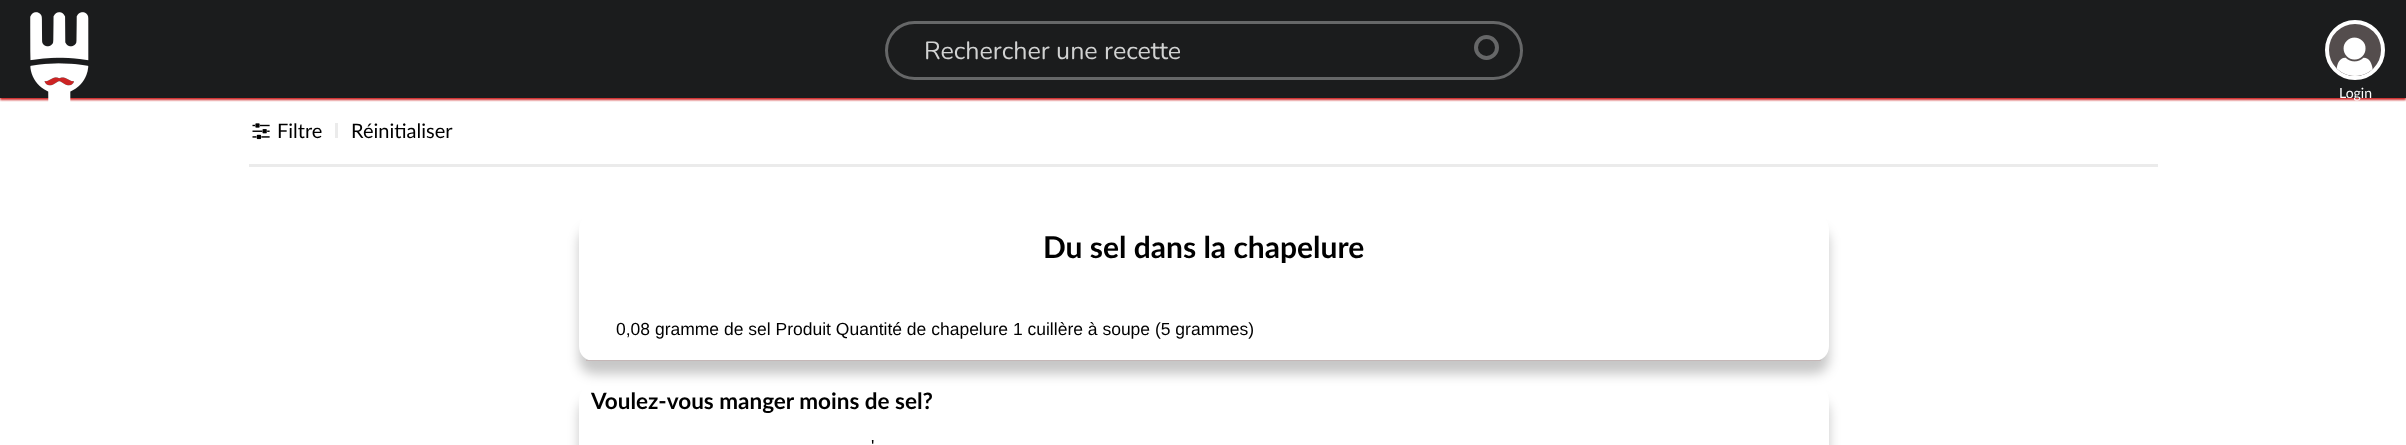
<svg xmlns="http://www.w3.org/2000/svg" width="2406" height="445">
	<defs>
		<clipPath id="clip1"><path d="M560 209H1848V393H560ZM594 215H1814C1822.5 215 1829 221.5 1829 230V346C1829 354.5 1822.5 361 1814 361H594C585.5 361 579 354.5 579 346V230C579 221.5 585.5 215 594 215Z" clip-rule="evenodd" /></clipPath>
		<clipPath id="clip2"><path d="M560 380H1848V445H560ZM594 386H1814C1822.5 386 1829 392.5 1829 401V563C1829 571.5 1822.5 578 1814 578H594C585.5 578 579 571.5 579 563V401C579 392.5 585.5 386 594 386Z" clip-rule="evenodd" /></clipPath>
	</defs>
	<rect width="100%" height="100%" fill="#FFFFFF" />
	<rect x="0" y="3" width="2406" height="97" fill="#CC2424" filter="blur(1px)" />
	<rect x="0" y="0" width="2406" height="98" fill="#1B1C1D" />
	<image x="30" y="12" width="59" height="90" href="assets/img1.png" />
	<circle cx="1486.5" cy="47.5" r="10.5" fill="none" stroke="#666768" stroke-width="4" />
	<rect x="886.5" y="22.5" width="635" height="56" rx="28" fill="none" stroke="#666768" stroke-width="3" />
	<text x="924" y="59" font-family="Nunito" font-size="25" fill="#D1D2D2">Rechercher une recette</text>
	<circle cx="2355" cy="50" r="28" fill="#544D4D" stroke="#FFFFFF" stroke-width="4" />
	<image x="2336" y="37" width="37" height="39" href="assets/img2.png" />
	<text x="2339" y="98" font-family="Lato" font-size="14" fill="#FFFFFF">Login</text>
	<rect x="249" y="164" width="1909" height="3" fill="#EBEBEB" />
	<image x="252" y="123" width="18" height="17" href="assets/img3.png" />
	<text x="277" y="138" font-family="Lato" font-size="20" fill="#000000">Filtre</text>
	<rect x="335" y="123" width="3" height="15" fill="#EBEBEB" />
	<text x="351" y="138" font-family="Lato" font-size="20" fill="#000000">Réinitialiser</text>
	<g clip-path="url(#clip1)">
		<rect x="579" y="228" width="1250" height="146" rx="15" fill="#000000" fill-opacity="0.22" filter="blur(6px)" />
	</g>
	<rect x="586" y="360" width="1235" height="1" fill="#C5B7B7" />
	<text x="1043" y="258" font-family="Lato" font-size="30" font-weight="700" fill="#000000">Du sel dans la chapelure</text>
	<text x="616" y="335" font-family="Liberation Sans" font-size="17.5" fill="#000000">0,08 gramme de sel Produit Quantité de chapelure 1 cuillère à soupe (5 grammes)</text>
	<g clip-path="url(#clip2)">
		<rect x="579" y="399" width="1250" height="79" rx="15" fill="#000000" fill-opacity="0.22" filter="blur(6px)" />
	</g>
	<text x="591" y="409" font-family="Lato" font-size="22.5" font-weight="700" fill="#000000">Voulez-vous manger moins de sel?</text>
	<text x="871" y="452" font-family="Liberation Sans" font-size="17.5" fill="#000000">'</text>
</svg>
